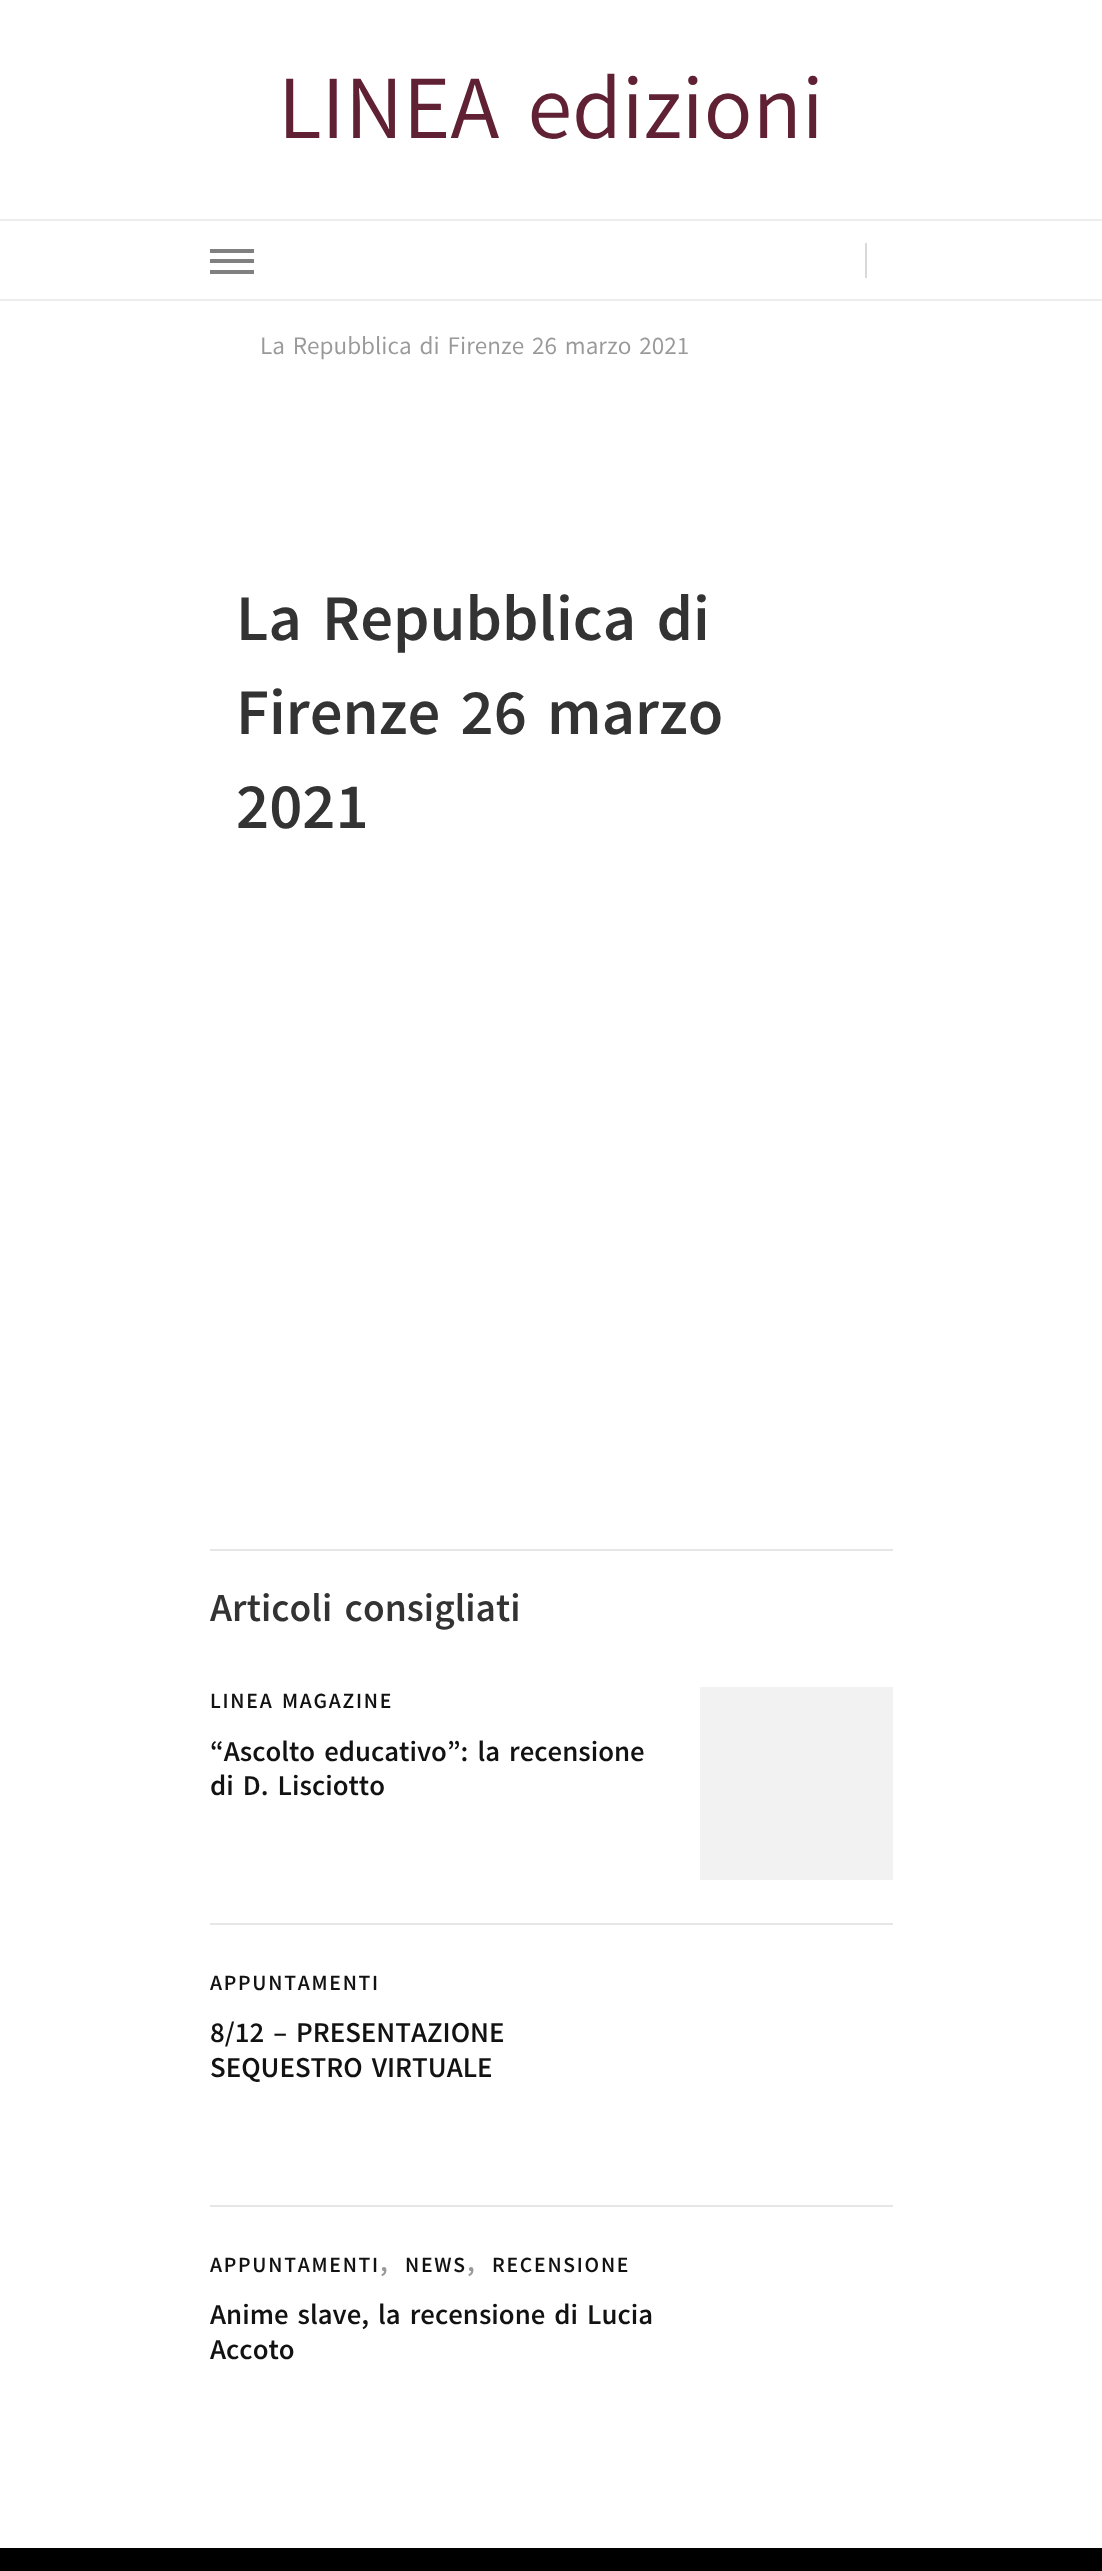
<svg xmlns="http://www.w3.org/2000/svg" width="1102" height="2571">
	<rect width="100%" height="100%" fill="#FFFFFF" />
	<text x="278" y="138" font-family="Akatab" font-size="87.5" fill="#602134">LINEA edizioni</text>
	<rect x="0" y="219" width="1102" height="2" fill="#EDEDED" />
	<rect x="0" y="299" width="1102" height="2" fill="#EDEDED" />
	<rect x="210" y="249" width="44" height="4" fill="#808080" />
	<rect x="210" y="259" width="44" height="4" fill="#808080" />
	<rect x="210" y="270" width="44" height="4" fill="#808080" />
	<rect x="865" y="243" width="2" height="35" fill="#D9D9D9" />
	<text x="260" y="354" font-family="Akatab" font-size="24.5" fill="#999999">La Repubblica di Firenze 26 marzo 2021</text>
	<g font-family="Akatab" font-size="63" font-weight="700" fill="#333333">
		<text x="236" y="640">La Repubblica di</text>
		<text x="236" y="734">Firenze 26 marzo</text>
		<text x="236" y="828">2021</text>
	</g>
	<rect x="210" y="1549" width="683" height="2" fill="#E6E6E6" />
	<text x="210" y="1621" font-family="Akatab" font-size="38.5" font-weight="700" fill="#333333">Articoli consigliati</text>
	<rect x="210" y="1923" width="683" height="2" fill="#E6E6E6" />
	<text x="210" y="1708" font-family="Akatab" font-size="21" font-weight="700" letter-spacing="1.75" fill="#121212">LINEA MAGAZINE</text>
	<g font-family="Akatab" font-size="28" font-weight="700" fill="#121212">
		<text x="210" y="1761">“Ascolto educativo”: la recensione</text>
		<text x="210" y="1795">di D. Lisciotto</text>
	</g>
	<rect x="700" y="1687" width="193" height="193" fill="#F2F2F2" />
	<rect x="210" y="2205" width="683" height="2" fill="#E6E6E6" />
	<text x="210" y="1990" font-family="Akatab" font-size="21" font-weight="700" letter-spacing="1.75" fill="#121212">APPUNTAMENTI</text>
	<g font-family="Akatab" font-size="28" font-weight="700" fill="#121212">
		<text x="210" y="2042">8/12 – PRESENTAZIONE</text>
		<text x="210" y="2077">SEQUESTRO VIRTUALE</text>
	</g>
	<text x="210" y="2272" font-family="Akatab" font-size="21" font-weight="700" letter-spacing="1.75" fill="#121212">APPUNTAMENTI</text>
	<text x="380" y="2271" font-family="Akatab" font-size="28" font-weight="700" letter-spacing="1.75" fill="#999999">,</text>
	<text x="405" y="2272" font-family="Akatab" font-size="21" font-weight="700" letter-spacing="1.75" fill="#121212">NEWS</text>
	<text x="467" y="2271" font-family="Akatab" font-size="28" font-weight="700" letter-spacing="1.75" fill="#999999">,</text>
	<text x="492" y="2272" font-family="Akatab" font-size="21" font-weight="700" letter-spacing="1.75" fill="#121212">RECENSIONE</text>
	<g font-family="Akatab" font-size="28" font-weight="700" fill="#121212">
		<text x="210" y="2324">Anime slave, la recensione di Lucia</text>
		<text x="210" y="2359">Accoto</text>
	</g>
	<rect x="0" y="2548" width="1102" height="23" fill="#000000" />
</svg>
